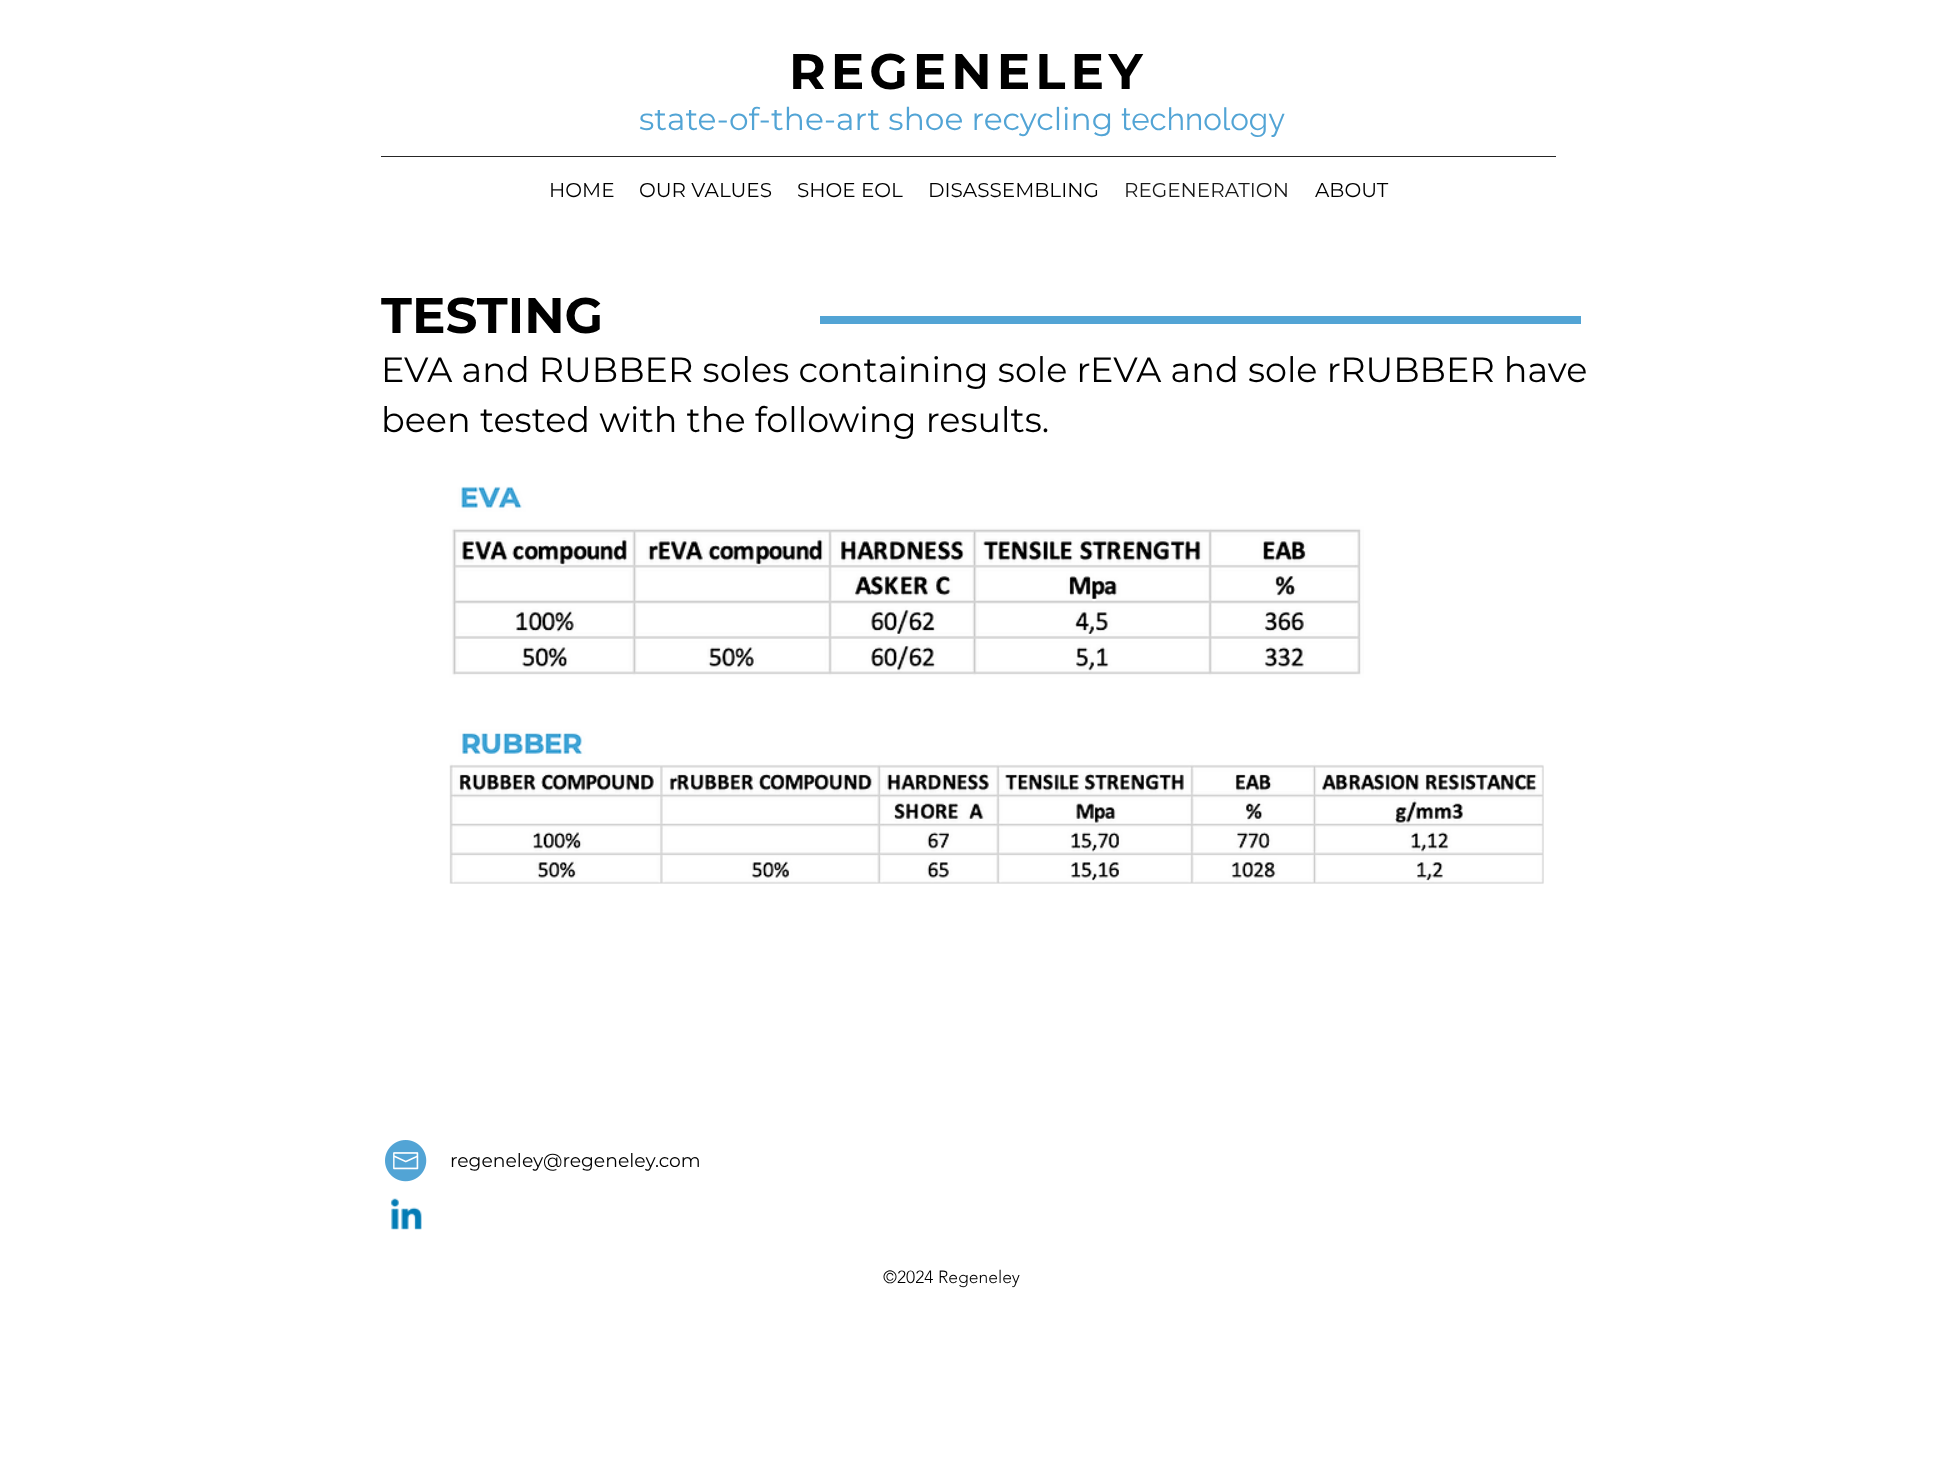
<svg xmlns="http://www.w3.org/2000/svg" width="1937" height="1458">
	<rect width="100%" height="100%" fill="#FFFFFF" />
	<text x="789" y="89" font-family="Montserrat" font-size="50" font-weight="700" letter-spacing="5" fill="#000000">REGENELEY</text>
	<g font-family="Montserrat" font-size="31.25" fill="#52A4D5">
		<text x="639" y="130">state-of-</text>
		<text x="771" y="130">the-art shoe recycling</text>
	</g>
	<text x="1121" y="130" font-family="Raleway" font-size="31.25" fill="#52A4D5">technology</text>
	<rect x="381" y="156" width="1175" height="1" fill="#262626" />
	<g font-family="Montserrat" font-size="20" fill="#000000">
		<text x="549" y="197">HOME</text>
		<text x="639" y="197">OUR VALUES</text>
		<text x="797" y="197">SHOE EOL</text>
		<text x="928" y="197">DISASSEMBLING</text>
	</g>
	<text x="1124" y="197" font-family="Montserrat" font-size="20" fill="#191919">REGENERATION</text>
	<text x="1315" y="197" font-family="Montserrat" font-size="20" fill="#000000">ABOUT</text>
	<text x="381" y="333" font-family="Montserrat" font-size="50" font-weight="700" fill="#000000">TESTING</text>
	<g font-family="Montserrat" font-size="35" fill="#000000">
		<text x="381" y="382">EVA and RUBBER soles containing sole rEVA and sole rRUBBER have</text>
		<text x="381" y="432">been tested with the following results.</text>
	</g>
	<rect x="820" y="316" width="761" height="8" fill="#52A4D5" />
	<image x="449" y="486" width="1095" height="398" href="assets/img1.png" />
	<image x="385" y="1140" width="42" height="42" href="assets/img2.png" />
	<text x="450" y="1167" font-family="Montserrat" font-size="18.75" fill="#000000">regeneley@regeneley.com</text>
	<image x="390" y="1198" width="32" height="32" href="assets/img3.png" />
	<text x="883" y="1283" font-family="'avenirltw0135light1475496'" font-size="17.5" font-weight="300" fill="#000000">©2024 Regeneley</text>
</svg>
